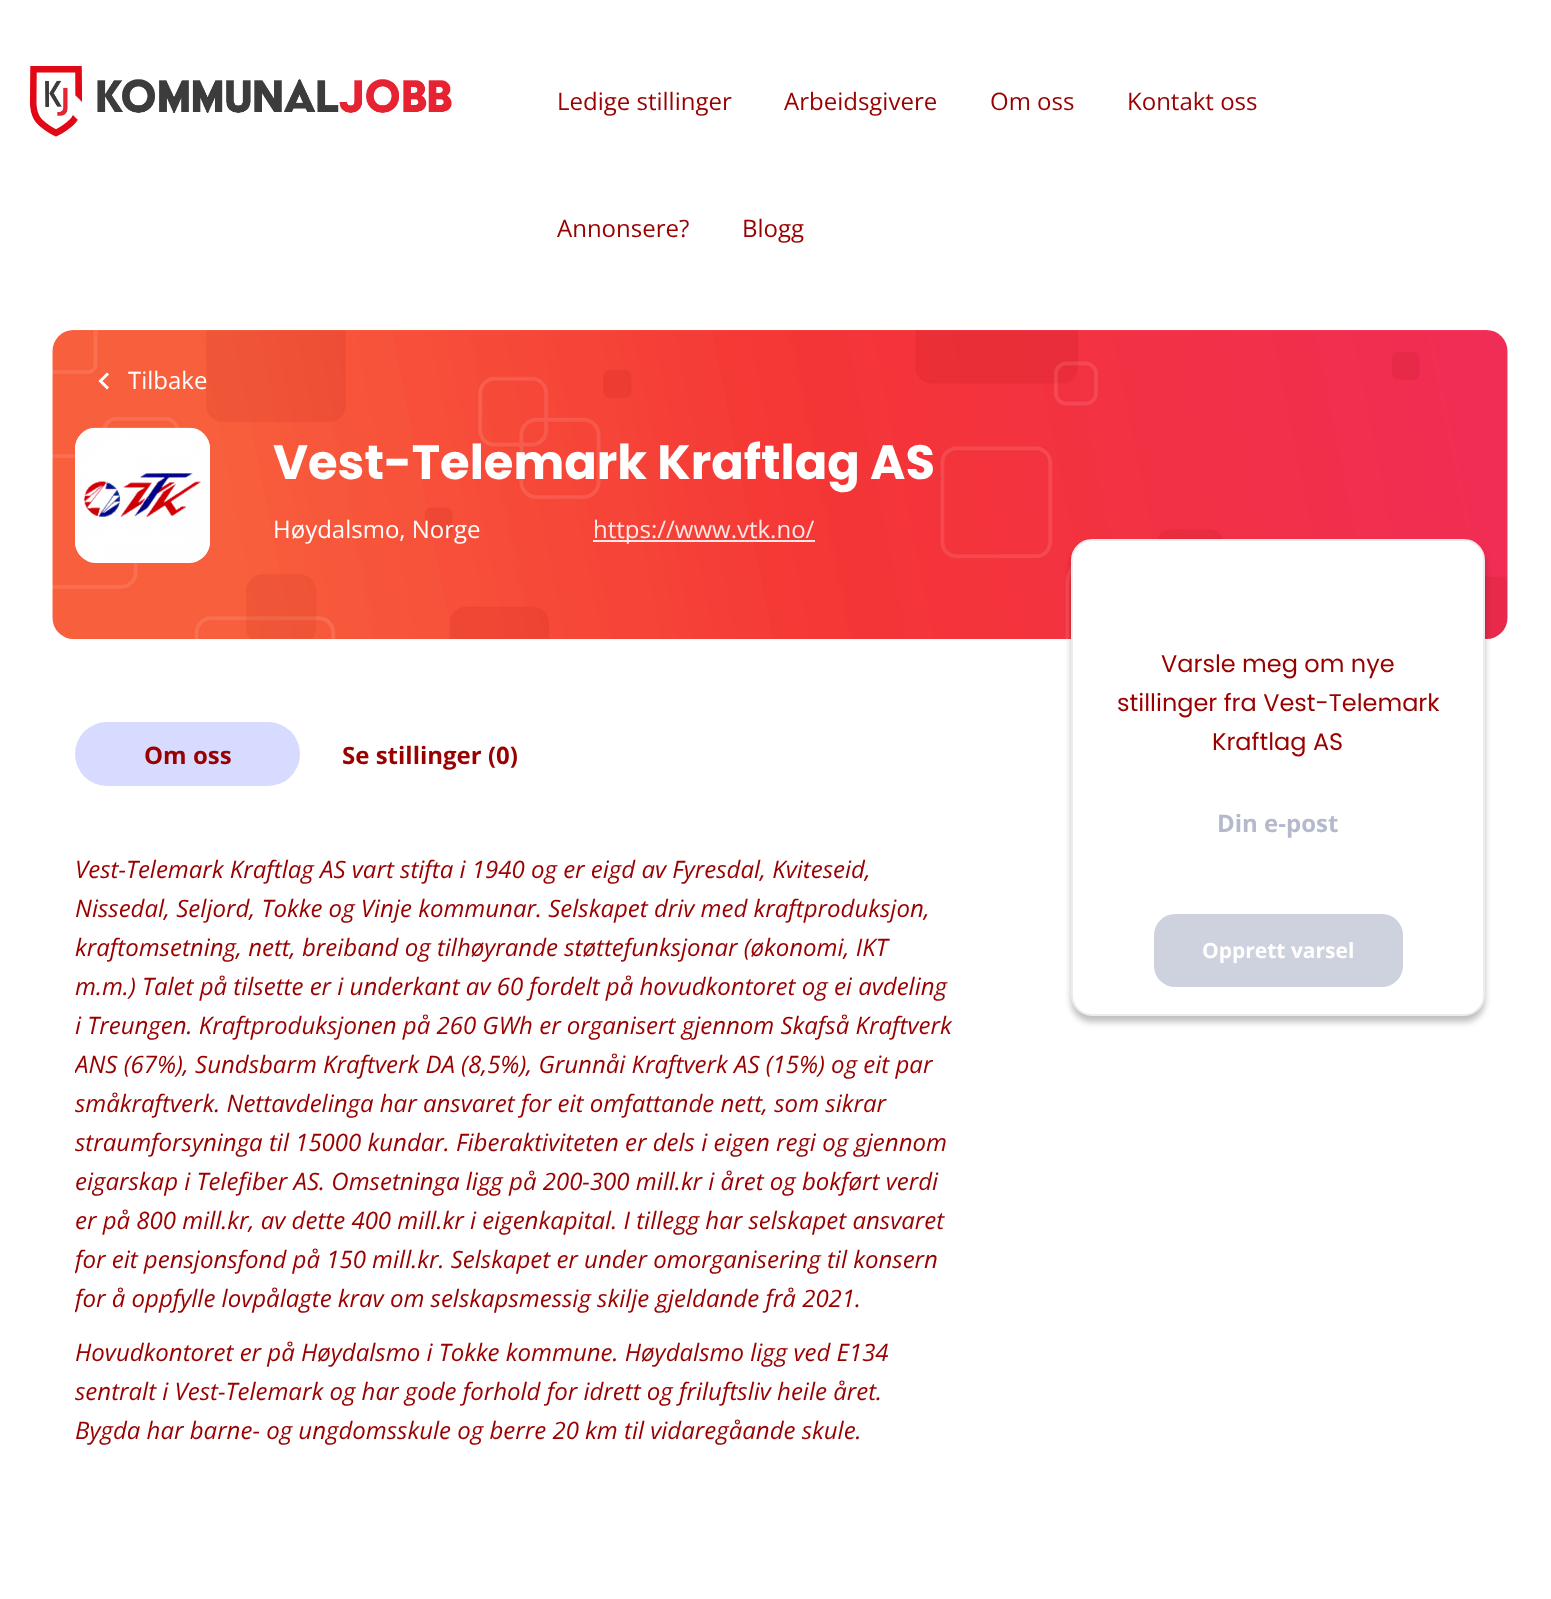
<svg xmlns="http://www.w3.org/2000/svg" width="1551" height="1599">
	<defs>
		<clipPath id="clip1"><rect x="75" y="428" width="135" height="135" rx="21" /></clipPath>
		<clipPath id="clip2"><rect x="75" y="849" width="878" height="600" /></clipPath>
	</defs>
	<rect width="100%" height="100%" fill="#FFFFFF" />
	<image x="30" y="66" width="422" height="71" href="assets/img1.png" />
	<g font-family="Open Sans" font-size="24" fill="#990000">
		<text x="557" y="110">Ledige stillinger</text>
		<text x="784" y="110">Arbeidsgivere</text>
		<text x="990" y="110">Om oss</text>
		<text x="1127" y="110">Kontakt oss</text>
		<text x="557" y="237">Annonsere?</text>
		<text x="742" y="237">Blogg</text>
	</g>
	<image x="52" y="330" width="1456" height="309" href="assets/img2.png" />
	<path d="M108 373.5L100.5 381L108 388.5" fill="none" stroke="#FFFFFF" stroke-width="3" />
	<text x="128" y="389" font-family="Open Sans" font-size="24" fill="#FFFFFF">Tilbake</text>
	<g clip-path="url(#clip1)">
		<rect x="77" y="429" width="135" height="135" rx="9" fill="#000000" fill-opacity="0.3" filter="blur(3px)" />
	</g>
	<rect x="75" y="428" width="135" height="135" rx="21" fill="#FFFFFF" />
	<image x="75" y="427" width="135" height="136" href="assets/img3.png" />
	<text x="273" y="479" font-family="Poppins" font-size="48" font-weight="700" fill="#FFFFFF">Vest-Telemark Kraftlag AS</text>
	<text x="273" y="538" font-family="Open Sans" font-size="24" fill="#FFFFFF">Høydalsmo, Norge</text>
	<rect x="593" y="540" width="222" height="2" fill="#FFFFFF" fill-opacity="0.88" />
	<text x="593" y="538" font-family="Open Sans" font-size="24" fill="#FEE8E7">https://www.vtk.no/</text>
	<rect x="75" y="722" width="225" height="64" rx="32" fill="#D7DBFF" />
	<g font-family="Open Sans" font-size="24" font-weight="700" fill="#990000">
		<text x="144" y="764">Om oss</text>
		<text x="342" y="764">Se stillinger (0)</text>
	</g>
	<g font-family="Open Sans" font-size="24" font-style="italic" fill="#990000">
		<text x="75" y="878">Vest-Telemark Kraftlag AS vart stifta i 1940 og er eigd av Fyresdal, Kviteseid,</text>
		<text x="75" y="917">Nissedal, Seljord, Tokke og Vinje kommunar. Selskapet driv med kraftproduksjon,</text>
		<text x="75" y="956">kraftomsetning, nett, breiband og tilhøyrande støttefunksjonar (økonomi, IKT</text>
		<text x="75" y="995">m.m.) Talet på tilsette er i underkant av 60 fordelt på hovudkontoret og ei avdeling</text>
		<text x="75" y="1034">i Treungen. Kraftproduksjonen på 260 GWh er organisert gjennom Skafså Kraftverk</text>
	</g>
	<g clip-path="url(#clip2)">
		<text x="75" y="1073" font-family="Open Sans" font-size="24" font-style="italic" fill="#990000">ANS (67%), Sundsbarm Kraftverk DA (8,5%), Grunnåi Kraftverk AS (15%) og eit par</text>
	</g>
	<g font-family="Open Sans" font-size="24" font-style="italic" fill="#990000">
		<text x="75" y="1112">småkraftverk. Nettavdelinga har ansvaret for eit omfattande nett, som sikrar</text>
		<text x="75" y="1151">straumforsyninga til 15000 kundar. Fiberaktiviteten er dels i eigen regi og gjennom</text>
		<text x="75" y="1190">eigarskap i Telefiber AS. Omsetninga ligg på 200-300 mill.kr i året og bokført verdi</text>
		<text x="75" y="1229">er på 800 mill.kr, av dette 400 mill.kr i eigenkapital. I tillegg har selskapet ansvaret</text>
	</g>
	<g clip-path="url(#clip2)">
		<g font-family="Open Sans" font-size="24" font-style="italic" fill="#990000">
			<text x="75" y="1268">for eit pensjonsfond på 150 mill.kr. Selskapet er under omorganisering til konsern</text>
			<text x="75" y="1307">for å oppfylle lovpålagte krav om selskapsmessig skilje gjeldande frå 2021.</text>
		</g>
	</g>
	<g font-family="Open Sans" font-size="24" font-style="italic" fill="#990000">
		<text x="75" y="1361">Hovudkontoret er på Høydalsmo i Tokke kommune. Høydalsmo ligg ved E134</text>
		<text x="75" y="1400">sentralt i Vest-Telemark og har gode forhold for idrett og friluftsliv heile året.</text>
		<text x="75" y="1439">Bygda har barne- og ungdomsskule og berre 20 km til vidaregåande skule.</text>
	</g>
	<rect x="1071" y="545" width="414" height="477" rx="21" fill="#000000" fill-opacity="0.25" filter="blur(3px)" />
	<rect x="1072" y="540" width="412" height="475" rx="20" fill="#FFFFFF" stroke="#EBECF1" stroke-width="2" />
	<g font-family="Poppins" font-size="24" fill="#990000">
		<text x="1161" y="672">Varsle meg om nye</text>
		<text x="1117" y="711">stillinger fra Vest-Telemark</text>
		<text x="1212" y="750">Kraftlag AS</text>
	</g>
	<text x="1217" y="832" font-family="Open Sans" font-size="24" font-weight="700" fill="#B4B9CC">Din e-post</text>
	<rect x="1154" y="914" width="249" height="73" rx="21" fill="#CED2DE" />
	<text x="1202" y="958" font-family="Open Sans" font-size="21" font-weight="700" fill="#FFFFFF">Opprett varsel</text>
</svg>
